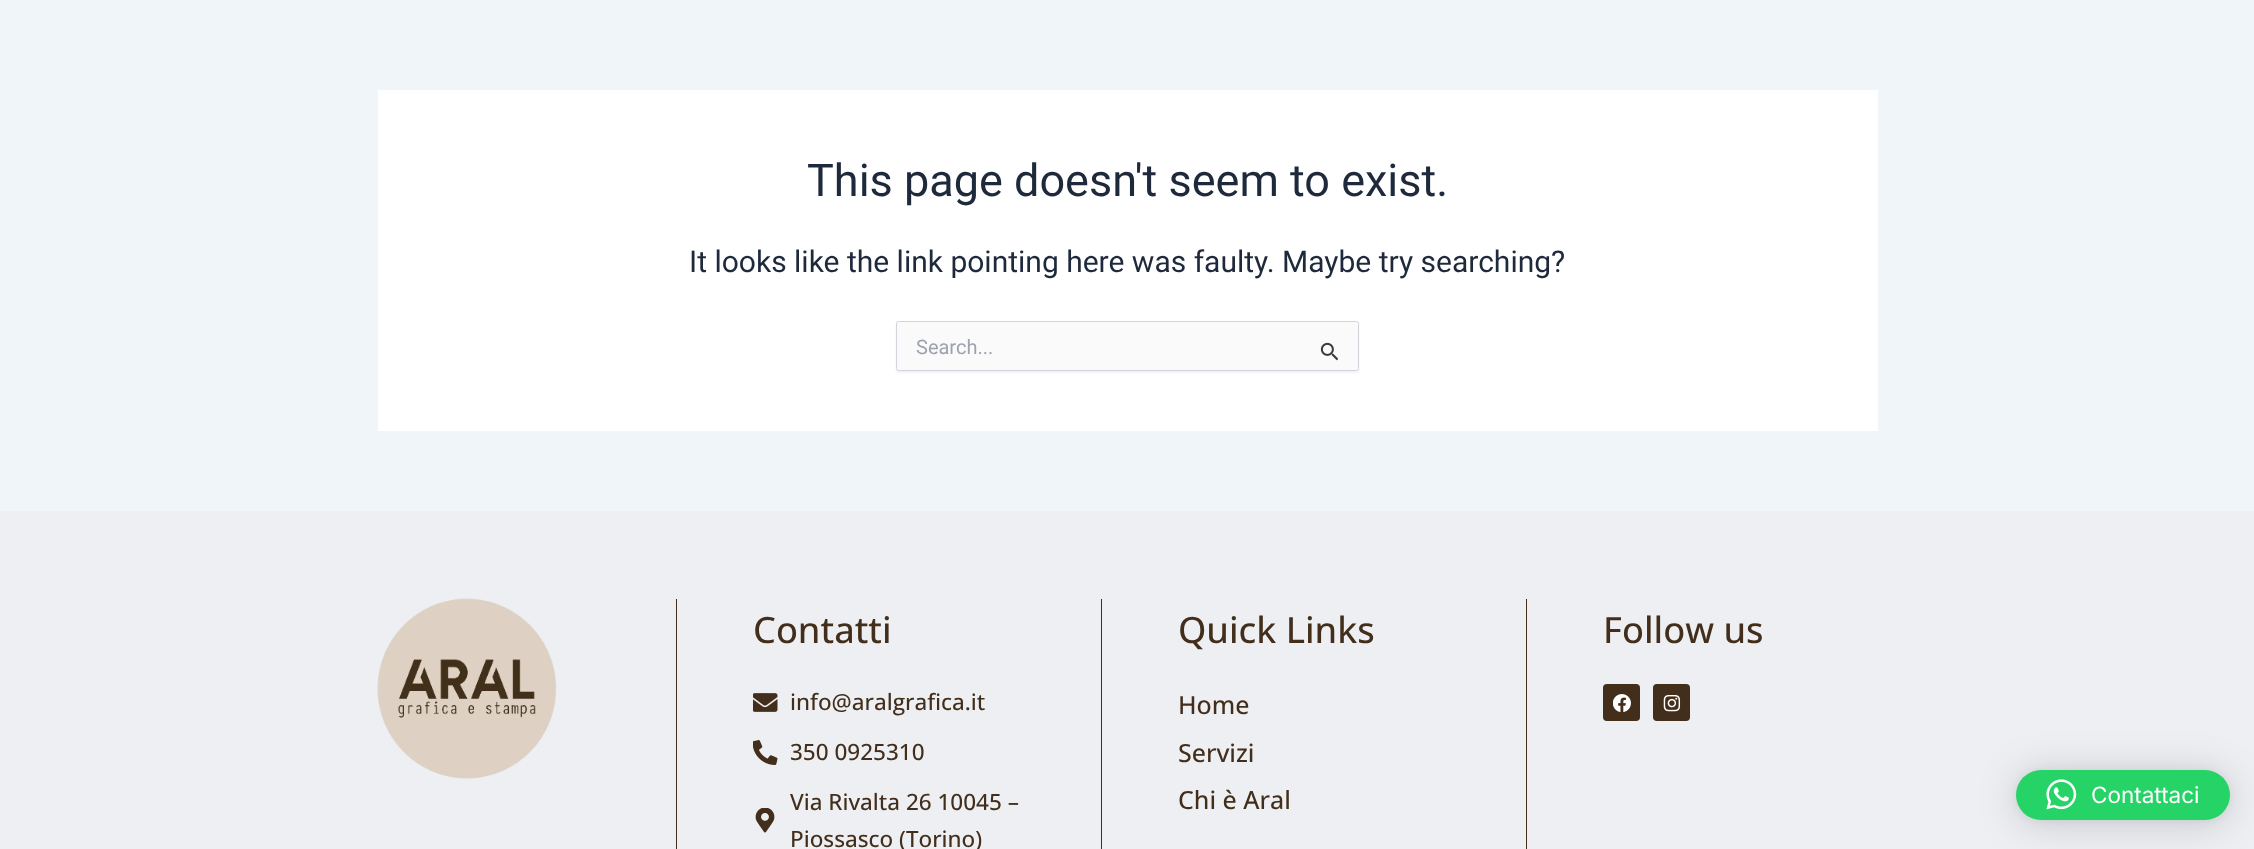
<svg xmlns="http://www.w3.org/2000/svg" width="2254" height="849">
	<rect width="100%" height="100%" fill="#F0F5FA" />
	<rect x="378" y="90" width="1500" height="341" fill="#FFFFFF" />
	<text x="807" y="196" font-family="Roboto" font-size="45" fill="#1E293B">This page doesn't seem to exist.</text>
	<text x="689" y="272" font-family="Roboto" font-size="30" fill="#1E293B">It looks like the link pointing here was faulty. Maybe try searching?</text>
	<rect x="896" y="323" width="463" height="50" rx="2.5" fill="#000000" fill-opacity="0.05" filter="blur(1px)" />
	<rect x="896.5" y="321.5" width="462" height="49" rx="2" fill="#FAFAFA" stroke="#D1D5DB" />
	<text x="916" y="354" font-family="Roboto" font-size="20" fill="#9CA3AF">Search...</text>
	<image x="1320" y="342" width="18" height="19" href="assets/img1.png" />
	<rect x="0" y="511" width="2254" height="338" fill="#EDEFF3" />
	<rect x="676" y="599" width="1" height="250" fill="#422E1A" />
	<image x="377" y="598" width="180" height="181" href="assets/img2.png" />
	<rect x="1101" y="599" width="1" height="250" fill="#422E1A" />
	<text x="753" y="643" font-family="Open Sans" font-size="36.25" font-weight="500" fill="#422E1A">Contatti</text>
	<image x="753" y="693" width="25" height="19" href="assets/img3.png" />
	<text x="790" y="710" font-family="Open Sans" font-size="22.5" font-weight="500" fill="#422E1A">info@aralgrafica.it</text>
	<image x="753" y="740" width="25" height="25" href="assets/img4.png" />
	<text x="790" y="760" font-family="Open Sans" font-size="22.5" font-weight="500" fill="#422E1A">350 0925310</text>
	<image x="755" y="808" width="20" height="25" href="assets/img5.png" />
	<g font-family="Open Sans" font-size="22.5" font-weight="500" fill="#422E1A">
		<text x="790" y="810">Via Rivalta 26 10045 –</text>
		<text x="790" y="847">Piossasco (Torino)</text>
	</g>
	<rect x="1526" y="599" width="1" height="250" fill="#422E1A" />
	<text x="1178" y="643" font-family="Open Sans" font-size="36.25" font-weight="500" fill="#422E1A">Quick Links</text>
	<g font-family="Open Sans" font-size="25" font-weight="500" fill="#422E1A">
		<text x="1178" y="714">Home</text>
		<text x="1178" y="762">Servizi</text>
		<text x="1178" y="809">Chi è Aral</text>
	</g>
	<text x="1603" y="643" font-family="Open Sans" font-size="36.25" font-weight="500" fill="#422E1A">Follow us</text>
	<rect x="1603" y="684" width="37" height="37" rx="4" fill="#422E1A" />
	<image x="1613" y="694" width="18" height="18" href="assets/img6.png" />
	<rect x="1653" y="684" width="37" height="37" rx="4" fill="#422E1A" />
	<image x="1663" y="695" width="18" height="17" href="assets/img7.png" />
	<rect x="2016" y="773" width="214" height="50" rx="25" fill="#000000" fill-opacity="0.16" filter="blur(20px)" />
	<rect x="2016" y="771" width="214" height="50" rx="25" fill="#000000" fill-opacity="0.06" filter="blur(4px)" />
	<rect x="2016" y="770" width="214" height="50" rx="25" fill="#25D366" />
	<image x="2046" y="779" width="31" height="31" href="assets/img8.png" />
	<text x="2091" y="803" font-family="Inter" font-size="22.5" fill="#FFFFFF">Contattaci</text>
</svg>
